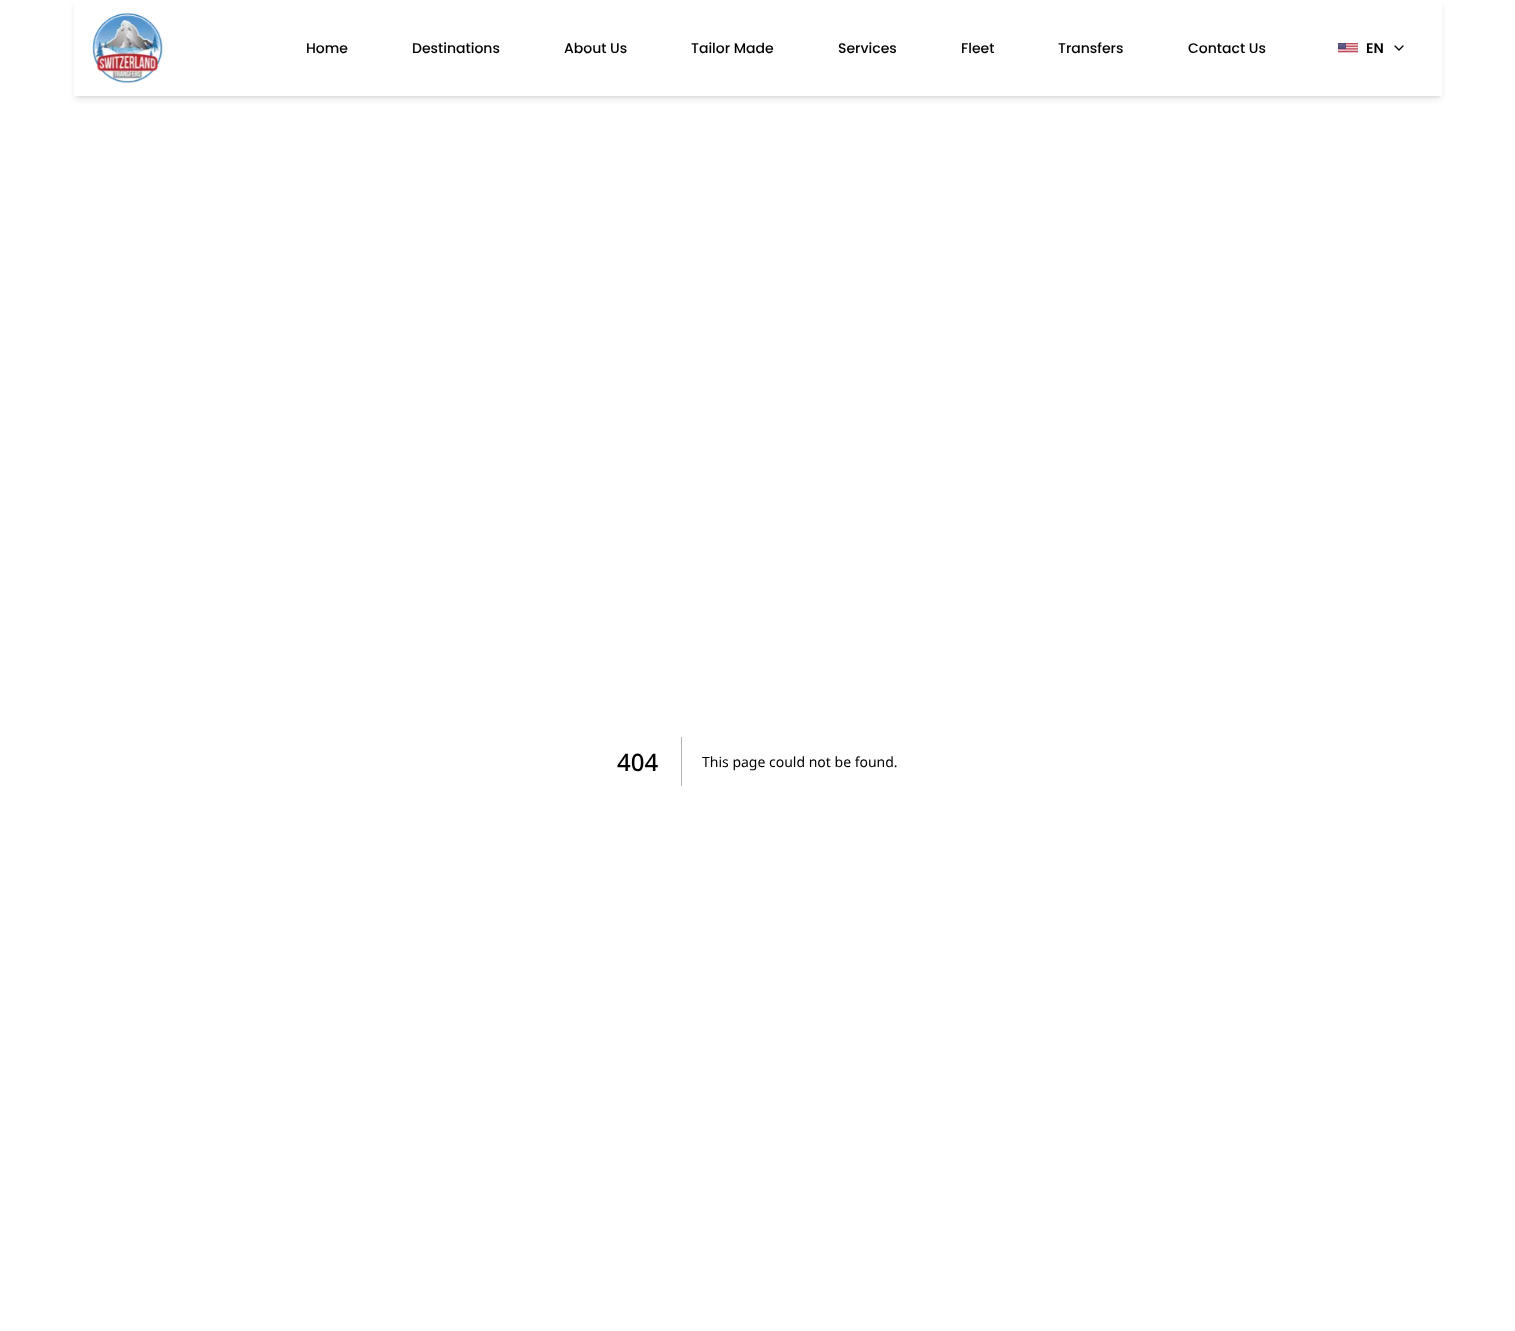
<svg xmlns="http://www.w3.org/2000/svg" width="1515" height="1331">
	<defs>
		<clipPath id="clip1"><rect x="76" y="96" width="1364" height="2" /></clipPath>
		<clipPath id="clip2"><path d="M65 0H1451V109H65ZM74 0H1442V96H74Z" clip-rule="evenodd" /></clipPath>
	</defs>
	<rect width="100%" height="100%" fill="#FFFFFF" />
	<g clip-path="url(#clip1)">
		<rect x="76" y="4" width="1364" height="92" fill="#000000" fill-opacity="0.1" filter="blur(2px)" />
	</g>
	<g clip-path="url(#clip2)">
		<rect x="75" y="5" width="1366" height="94" fill="#000000" fill-opacity="0.1" filter="blur(3px)" />
	</g>
	<image x="92" y="12" width="71" height="71" href="assets/img1.png" />
	<g font-family="Poppins" font-size="14" font-weight="500" fill="#000000">
		<text x="306" y="53">Home</text>
		<text x="412" y="53">Destinations</text>
		<text x="564" y="53">About Us</text>
		<text x="691" y="53">Tailor Made</text>
		<text x="838" y="53">Services</text>
		<text x="961" y="53">Fleet</text>
		<text x="1058" y="53">Transfers</text>
		<text x="1188" y="53">Contact Us</text>
	</g>
	<image x="1338" y="43" width="20" height="10" href="assets/img2.png" />
	<text x="1366" y="53" font-family="Poppins" font-size="14" font-weight="600" fill="#000000">EN</text>
	<path d="M1395 46L1399 50L1403 46" fill="none" stroke="#000000" stroke-width="1.3" stroke-linecap="round" stroke-linejoin="round" />
	<rect x="681" y="737" width="1" height="49" fill="#B3B3B3" />
	<text x="617" y="771" font-family="Noto Sans" font-size="24" font-weight="500" fill="#000000">404</text>
	<text x="702" y="767" font-family="Noto Sans" font-size="14" fill="#000000">This page could not be found.</text>
</svg>
